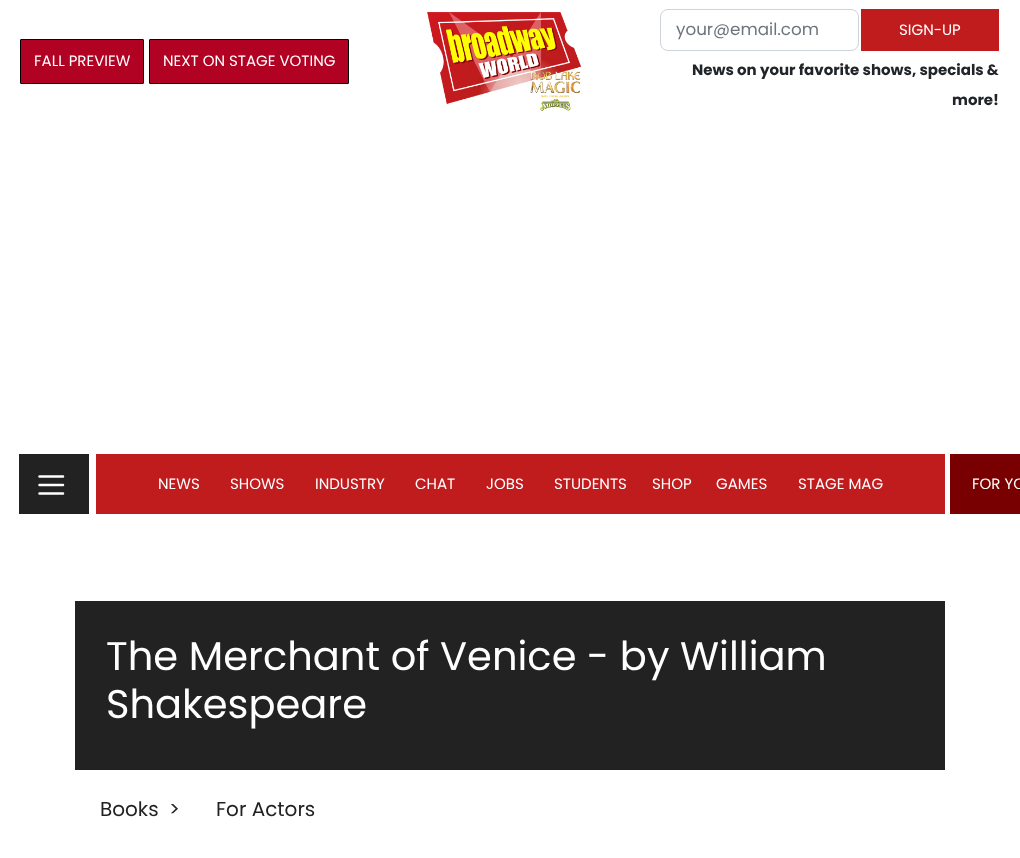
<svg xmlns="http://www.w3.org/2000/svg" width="1020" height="858">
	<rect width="100%" height="100%" fill="#FFFFFF" />
	<rect x="20.5" y="39.5" width="123" height="44" rx="0.5" fill="#B20223" stroke="#000000" />
	<text x="34" y="66" font-family="Poppins" font-size="15" fill="#FFFFFF">FALL PREVIEW</text>
	<rect x="149.5" y="39.5" width="199" height="44" rx="0.5" fill="#B20223" stroke="#000000" />
	<text x="163" y="66" font-family="Poppins" font-size="15" fill="#FFFFFF">NEXT ON STAGE VOTING</text>
	<image x="427" y="12" width="154" height="99" href="assets/img1.png" />
	<rect x="660.5" y="9.5" width="198" height="41" rx="7.5" fill="none" stroke="#CED4DA" />
	<text x="676" y="35" font-family="Poppins" font-size="16.75" fill="#6C757D">your@email.com</text>
	<rect x="861" y="9" width="138" height="42" fill="#C01B1D" />
	<text x="899" y="35" font-family="Poppins" font-size="15" fill="#FFFFFF">SIGN-UP</text>
	<g font-family="Poppins" font-size="15" font-weight="700" fill="#212529">
		<text x="692" y="75">News on your favorite shows, specials &amp;</text>
		<text x="952" y="105">more!</text>
	</g>
	<rect x="19" y="454" width="70" height="60" fill="#222222" />
	<path d="M39.5 476.5H63M39.5 485H63M39.5 493.5H63" fill="none" stroke="#FFFFFF" stroke-width="2.5" stroke-linecap="round" />
	<rect x="96" y="454" width="849" height="60" fill="#C01B1D" />
	<g font-family="Poppins" font-size="15" fill="#FFFFFF">
		<text x="158" y="489">NEWS</text>
		<text x="230" y="489">SHOWS</text>
		<text x="315" y="489">INDUSTRY</text>
		<text x="415" y="489">CHAT</text>
		<text x="486" y="489">JOBS</text>
		<text x="554" y="489">STUDENTS</text>
		<text x="652" y="489">SHOP</text>
		<text x="716" y="489">GAMES</text>
		<text x="798" y="489">STAGE MAG</text>
	</g>
	<rect x="950" y="454" width="70" height="60" fill="#780000" />
	<text x="972" y="489" font-family="Poppins" font-size="15" fill="#FFFFFF">FOR YO</text>
	<rect x="75" y="601" width="870" height="169" fill="#222222" />
	<g font-family="Poppins" font-size="40" fill="#FFFFFF">
		<text x="106" y="670">The Merchant of Venice - by William</text>
		<text x="106" y="718">Shakespeare</text>
	</g>
	<text x="100" y="816" font-family="Poppins" font-size="20" fill="#222222">Books</text>
	<text x="169" y="816" font-family="Poppins" font-size="20" fill="#212529">&gt;</text>
	<text x="216" y="816" font-family="Poppins" font-size="20" fill="#222222">For Actors</text>
</svg>
